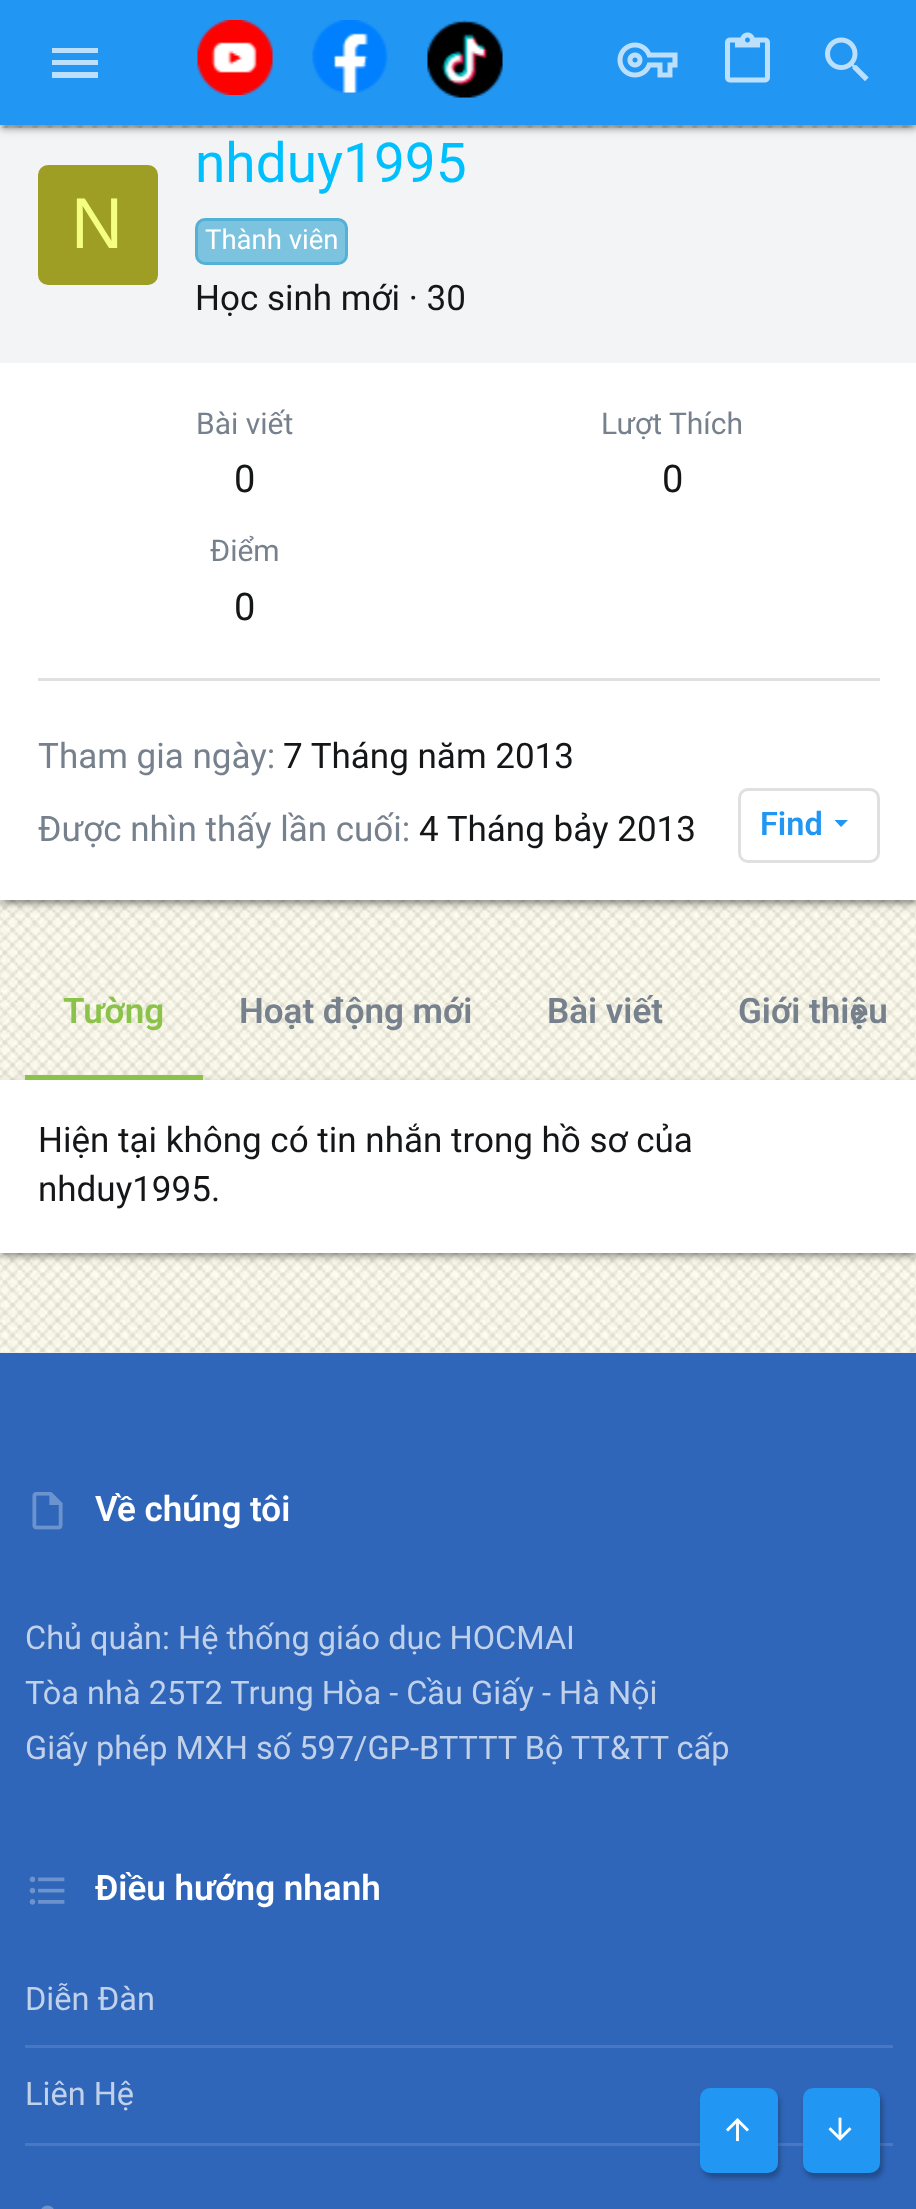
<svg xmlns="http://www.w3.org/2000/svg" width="916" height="2209">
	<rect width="100%" height="100%" fill="#ECEFF1" />
	<image x="0" y="125" width="916" height="1228" href="assets/img7.png" />
	<rect x="0" y="130" width="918" height="773" fill="#000000" fill-opacity="0.2" filter="blur(6px)" />
	<rect x="5" y="140" width="908" height="763" fill="#000000" fill-opacity="0.12" filter="blur(1px)" />
	<rect x="0" y="133" width="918" height="772" fill="#000000" fill-opacity="0.14" filter="blur(2.5px)" />
	<rect x="0" y="128" width="916" height="235" fill="#F3F4F5" />
	<rect x="0" y="3" width="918" height="125" fill="#000000" fill-opacity="0.2" filter="blur(6px)" />
	<rect x="5" y="13" width="908" height="115" fill="#000000" fill-opacity="0.12" filter="blur(1px)" />
	<rect x="0" y="5" width="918" height="125" fill="#000000" fill-opacity="0.14" filter="blur(2.5px)" />
	<rect x="0" y="0" width="916" height="125" fill="#2196F3" />
	<path d="M52 48H98V53H52ZM52 60H98V65H52ZM52 72H98V78H52Z" fill="#BCE0FB" />
	<image x="197" y="20" width="76" height="75" href="assets/img1.png" />
	<image x="312" y="20" width="76" height="73" href="assets/img2.png" />
	<image x="427" y="20" width="76" height="78" href="assets/img3.png" />
	<image x="617" y="42" width="61" height="36" href="assets/img4.png" />
	<image x="725" y="32" width="45" height="51" href="assets/img5.png" />
	<image x="825" y="37" width="44" height="45" href="assets/img6.png" />
	<rect x="0" y="363" width="916" height="537" fill="#FFFFFF" />
	<rect x="38" y="165" width="120" height="120" rx="10" fill="#9E9D24" />
	<text x="71" y="248" font-family="Liberation Sans" font-size="72" fill="#F4FF81">N</text>
	<text x="195" y="182" font-family="Roboto" font-size="55" fill="#00BFFF">nhduy1995</text>
	<rect x="196.5" y="219.5" width="150" height="44" rx="8.5" fill="#7CC3E0" stroke="#53B0D6" stroke-width="3" />
	<text x="205" y="249" font-family="Roboto" font-size="27.5" fill="#FFFFFF">Thành viên</text>
	<text x="195" y="310" font-family="Roboto" font-size="35" fill="#141618">Học sinh mới · 30</text>
	<text x="196" y="434" font-family="Roboto" font-size="30" fill="#76818D">Bài viết</text>
	<text x="234" y="492" font-family="Roboto" font-size="38" fill="#141618">0</text>
	<text x="601" y="434" font-family="Roboto" font-size="30" fill="#76818D">Lượt Thích</text>
	<text x="662" y="492" font-family="Roboto" font-size="38" fill="#141618">0</text>
	<text x="210" y="561" font-family="Roboto" font-size="30" fill="#76818D">Điểm</text>
	<text x="234" y="620" font-family="Roboto" font-size="38" fill="#141618">0</text>
	<rect x="38" y="678" width="842" height="3" fill="#E0E0E0" />
	<text x="38" y="768" font-family="Roboto" font-size="35" fill="#76818D">Tham gia ngày:</text>
	<text x="283" y="768" font-family="Roboto" font-size="35" fill="#141618">7 Tháng năm 2013</text>
	<text x="38" y="841" font-family="Roboto" font-size="35" fill="#76818D">Được nhìn thấy lần cuối:</text>
	<text x="419" y="841" font-family="Roboto" font-size="35" fill="#141618">4 Tháng bảy 2013</text>
	<rect x="739.5" y="789.5" width="139" height="72" rx="8.5" fill="none" stroke="#E0E0E0" stroke-width="3" />
	<text x="760" y="835" font-family="Roboto" font-size="32.5" font-weight="600" fill="#2196F3">Find</text>
	<path d="M834.5 820L841 827L848 820Z" fill="#2196F3" />
	<rect x="0" y="1083" width="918" height="172" fill="#000000" fill-opacity="0.2" filter="blur(6px)" />
	<rect x="0" y="1085" width="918" height="173" fill="#000000" fill-opacity="0.14" filter="blur(2.5px)" />
	<rect x="25" y="1075" width="178" height="5" fill="#8BC34A" />
	<text x="63" y="1023" font-family="Roboto" font-size="35" font-weight="600" fill="#8BC34A">Tường</text>
	<g font-family="Roboto" font-size="35" font-weight="600" fill="#76818D">
		<text x="239" y="1023">Hoạt động mới</text>
		<text x="547" y="1023">Bài viết</text>
		<text x="738" y="1023">Giới thiệu</text>
	</g>
	<path d="M852.5 1022.5L860.5 1014L852.5 1006L855 1004L865.5 1014L855 1025Z" fill="#76818D" />
	<rect x="5" y="1093" width="908" height="162" fill="#000000" fill-opacity="0.12" filter="blur(1px)" />
	<rect x="0" y="1080" width="916" height="173" fill="#FFFFFF" />
	<g font-family="Roboto" font-size="35" fill="#141618">
		<text x="38" y="1152">Hiện tại không có tin nhắn trong hồ sơ của</text>
		<text x="38" y="1201">nhduy1995.</text>
	</g>
	<rect x="0" y="1353" width="916" height="856" fill="#2F66B9" />
	<image x="32" y="1492" width="31" height="38" href="assets/img8.png" />
	<text x="95" y="1521" font-family="Roboto" font-size="35" font-weight="600" fill="#FFFFFF">Về chúng tôi</text>
	<g font-family="Roboto" font-size="32.5" fill="#C1D1EA">
		<text x="25" y="1649">Chủ quản: Hệ thống giáo dục HOCMAI</text>
		<text x="25" y="1704">Tòa nhà 25T2 Trung Hòa - Cầu Giấy - Hà Nội</text>
		<text x="25" y="1759">Giấy phép MXH số 597/GP-BTTTT Bộ TT&amp;TT cấp</text>
	</g>
	<image x="29" y="1876" width="36" height="29" href="assets/img9.png" />
	<text x="95" y="1900" font-family="Roboto" font-size="35" font-weight="600" fill="#FFFFFF">Điều hướng nhanh</text>
	<rect x="25" y="2045" width="868" height="3" fill="#4878C1" />
	<text x="25" y="2010" font-family="Roboto" font-size="32.5" fill="#C1D1EA">Diễn Đàn</text>
	<rect x="25" y="2143" width="868" height="3" fill="#4878C1" />
	<text x="25" y="2105" font-family="Roboto" font-size="32.5" fill="#C1D1EA">Liên Hệ</text>
	<image x="41" y="2205" width="13" height="4" href="assets/img10.png" />
	<rect x="703" y="2093" width="77" height="85" rx="10" fill="#000000" fill-opacity="0.25" filter="blur(2.5px)" />
	<rect x="700" y="2088" width="78" height="85" rx="10" fill="#2196F3" />
	<image x="726" y="2118" width="23" height="24" href="assets/img11.png" />
	<rect x="805" y="2093" width="78" height="85" rx="10" fill="#000000" fill-opacity="0.25" filter="blur(2.5px)" />
	<rect x="803" y="2088" width="77" height="85" rx="10" fill="#2196F3" />
	<image x="828" y="2117" width="24" height="24" href="assets/img12.png" />
</svg>
